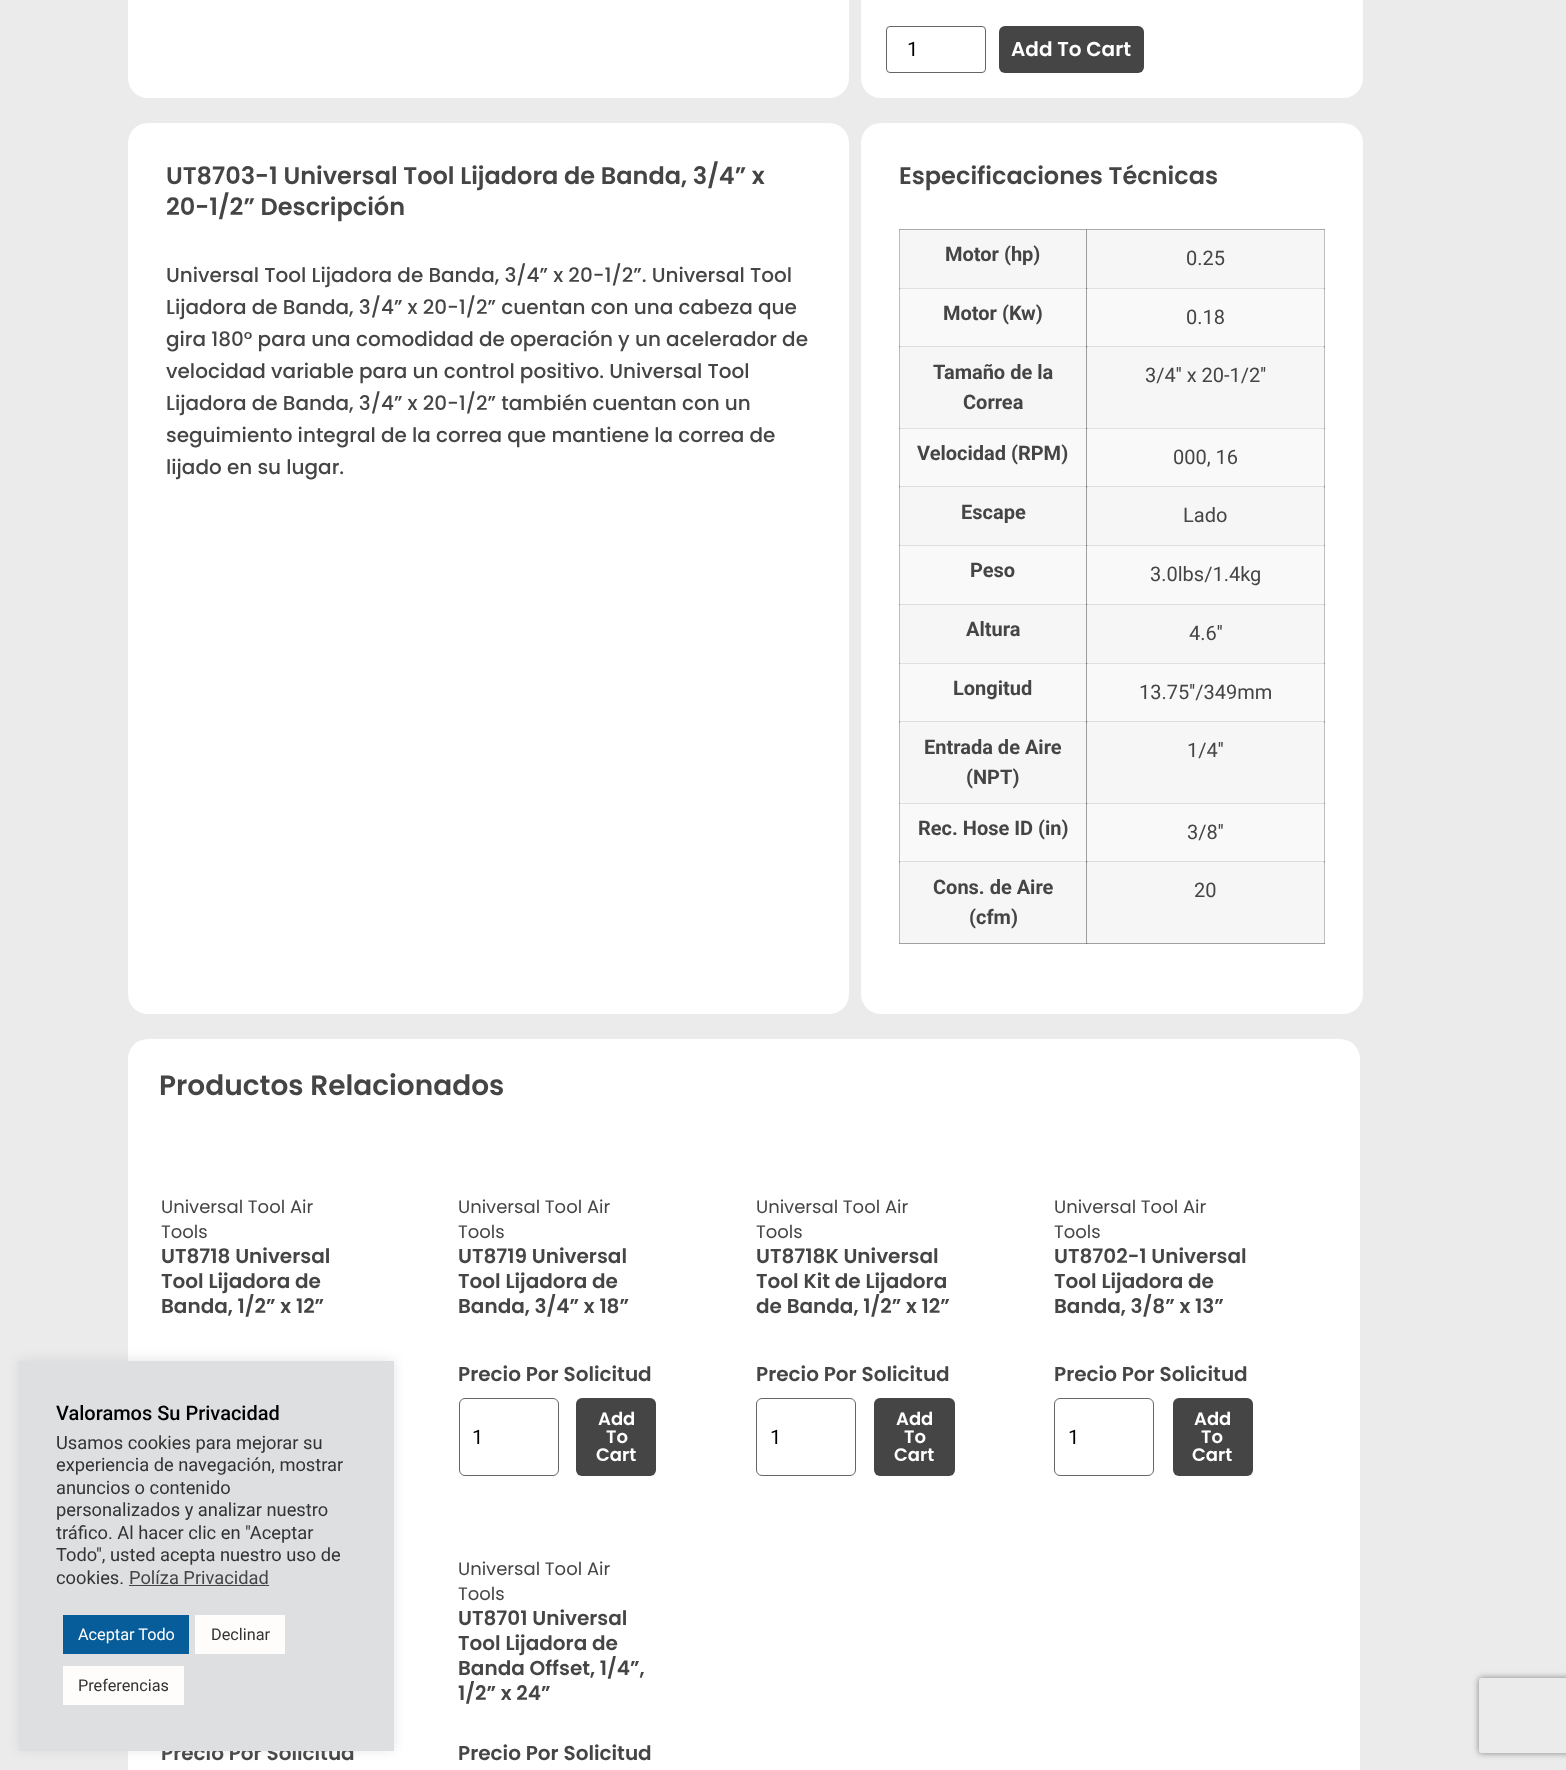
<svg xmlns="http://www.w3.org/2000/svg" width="1566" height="1770">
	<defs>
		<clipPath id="clip1"><path d="M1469 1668H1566V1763H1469ZM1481.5 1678H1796.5C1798 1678 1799 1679 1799 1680.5V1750.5C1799 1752 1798 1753 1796.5 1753H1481.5C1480 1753 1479 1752 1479 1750.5V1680.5C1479 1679 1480 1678 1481.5 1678Z" clip-rule="evenodd" /></clipPath>
	</defs>
	<rect width="100%" height="100%" fill="#EBEBEB" />
	<rect x="128" y="-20" width="721" height="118" rx="20" fill="#FFFFFF" />
	<rect x="861" y="-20" width="502" height="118" rx="20" fill="#FFFFFF" />
	<rect x="886.5" y="26.5" width="99" height="46" rx="3.5" fill="none" stroke="#666666" />
	<text x="907" y="56" font-family="Roboto" font-size="20" fill="#000000">1</text>
	<rect x="999" y="26" width="145" height="47" rx="6" fill="#454545" />
	<text x="1011" y="56" font-family="Poppins" font-size="20" font-weight="600" fill="#FFFFFF">Add To Cart</text>
	<rect x="128" y="123" width="721" height="891" rx="20" fill="#FFFFFF" />
	<g font-family="Poppins" font-size="24" font-weight="600" fill="#454545">
		<text x="166" y="184">UT8703-1 Universal Tool Lijadora de Banda, 3/4” x</text>
		<text x="166" y="215">20-1/2” Descripción</text>
	</g>
	<g font-family="Poppins" font-size="20" font-weight="500" fill="#454545">
		<text x="166" y="282">Universal Tool Lijadora de Banda, 3/4” x 20-1/2”. Universal Tool</text>
		<text x="166" y="314">Lijadora de Banda, 3/4” x 20-1/2” cuentan con una cabeza que</text>
		<text x="166" y="346">gira 180° para una comodidad de operación y un acelerador de</text>
		<text x="166" y="378">velocidad variable para un control positivo. Universal Tool</text>
		<text x="166" y="410">Lijadora de Banda, 3/4” x 20-1/2” también cuentan con un</text>
		<text x="166" y="442">seguimiento integral de la correa que mantiene la correa de</text>
		<text x="166" y="474">lijado en su lugar.</text>
	</g>
	<rect x="861" y="123" width="502" height="891" rx="20" fill="#FFFFFF" />
	<rect x="1324" y="229" width="1" height="715" fill="#C0C0C0" />
	<rect x="1324" y="288" width="1" height="1" fill="#909090" />
	<rect x="1324" y="346" width="1" height="2" fill="#A0A0A0" />
	<rect x="1324" y="346" width="1" height="1" fill="#909090" />
	<rect x="1324" y="428" width="1" height="1" fill="#909090" />
	<rect x="1324" y="486" width="1" height="2" fill="#A0A0A0" />
	<rect x="1324" y="486" width="1" height="1" fill="#909090" />
	<rect x="1324" y="545" width="1" height="1" fill="#909090" />
	<rect x="1324" y="604" width="1" height="1" fill="#909090" />
	<rect x="1324" y="663" width="1" height="1" fill="#909090" />
	<rect x="1324" y="721" width="1" height="2" fill="#A0A0A0" />
	<rect x="1324" y="721" width="1" height="1" fill="#909090" />
	<rect x="1324" y="803" width="1" height="1" fill="#909090" />
	<rect x="1324" y="861" width="1" height="2" fill="#A0A0A0" />
	<rect x="1324" y="861" width="1" height="1" fill="#909090" />
	<rect x="1324" y="229" width="1" height="1" fill="#9A9A9A" />
	<text x="899" y="184" font-family="Poppins" font-size="24" font-weight="600" fill="#454545">Especificaciones Técnicas</text>
	<rect x="899" y="943" width="426" height="1" fill="#A1A1A1" />
	<rect x="899" y="943" width="1" height="1" fill="#919191" />
	<rect x="1086" y="943" width="2" height="1" fill="#919191" />
	<rect x="1086" y="943" width="1" height="1" fill="#7B7B7B" />
	<rect x="1324" y="943" width="1" height="1" fill="#8B8B8B" />
	<rect x="900" y="230" width="186" height="58" fill="#F6F6F6" />
	<rect x="899" y="229" width="1" height="59" fill="#BBBBBB" />
	<rect x="899" y="229" width="187" height="1" fill="#ACACAC" />
	<rect x="899" y="229" width="1" height="1" fill="#969696" />
	<text x="945" y="261" font-family="Roboto" font-size="20" font-weight="700" fill="#454545">Motor (hp)</text>
	<rect x="1087" y="230" width="237" height="58" fill="#F6F6F6" />
	<rect x="1086" y="229" width="1" height="59" fill="#9E9E9E" />
	<rect x="1086" y="229" width="238" height="1" fill="#ACACAC" />
	<rect x="1086" y="229" width="1" height="1" fill="#8B8B8B" />
	<text x="1186" y="265" font-family="Roboto" font-size="20" fill="#454545">0.25</text>
	<rect x="900" y="289" width="186" height="57" fill="#F9F9F9" />
	<rect x="899" y="288" width="425" height="1" fill="#E0E0E0" />
	<rect x="899" y="288" width="1" height="58" fill="#BDBDBD" />
	<rect x="899" y="288" width="1" height="1" fill="#959595" />
	<text x="943" y="320" font-family="Roboto" font-size="20" font-weight="700" fill="#454545">Motor (Kw)</text>
	<rect x="1087" y="289" width="237" height="57" fill="#F9F9F9" />
	<rect x="1086" y="288" width="2" height="1" fill="#CACACA" />
	<rect x="1086" y="288" width="1" height="58" fill="#9F9F9F" />
	<rect x="1086" y="288" width="1" height="1" fill="#777777" />
	<text x="1186" y="324" font-family="Roboto" font-size="20" fill="#454545">0.18</text>
	<rect x="900" y="347" width="186" height="81" fill="#F6F6F6" />
	<rect x="899" y="346" width="425" height="1" fill="#DDDDDD" />
	<rect x="899" y="346" width="1" height="82" fill="#BBBBBB" />
	<rect x="899" y="346" width="1" height="2" fill="#9E9E9E" />
	<rect x="899" y="346" width="1" height="1" fill="#949494" />
	<g font-family="Roboto" font-size="20" font-weight="700" fill="#454545">
		<text x="933" y="379">Tamaño de la</text>
		<text x="963" y="409">Correa</text>
	</g>
	<rect x="1087" y="347" width="237" height="81" fill="#F6F6F6" />
	<rect x="1086" y="346" width="2" height="1" fill="#C7C7C7" />
	<rect x="1086" y="346" width="1" height="82" fill="#9E9E9E" />
	<rect x="1086" y="346" width="1" height="2" fill="#888888" />
	<rect x="1086" y="346" width="1" height="1" fill="#777777" />
	<text x="1145" y="382" font-family="Roboto" font-size="20" fill="#454545">3/4'' x 20-1/2''</text>
	<rect x="900" y="429" width="186" height="57" fill="#F9F9F9" />
	<rect x="899" y="428" width="425" height="1" fill="#E0E0E0" />
	<rect x="899" y="428" width="1" height="58" fill="#BDBDBD" />
	<rect x="899" y="428" width="1" height="1" fill="#959595" />
	<text x="917" y="460" font-family="Roboto" font-size="20" font-weight="700" fill="#454545">Velocidad (RPM)</text>
	<rect x="1087" y="429" width="237" height="57" fill="#F9F9F9" />
	<rect x="1086" y="428" width="2" height="1" fill="#CACACA" />
	<rect x="1086" y="428" width="1" height="58" fill="#9F9F9F" />
	<rect x="1086" y="428" width="1" height="1" fill="#777777" />
	<text x="1173" y="464" font-family="Roboto" font-size="20" fill="#454545">000, 16</text>
	<rect x="900" y="487" width="186" height="58" fill="#F6F6F6" />
	<rect x="899" y="486" width="425" height="1" fill="#DDDDDD" />
	<rect x="899" y="486" width="1" height="59" fill="#BBBBBB" />
	<rect x="899" y="486" width="1" height="2" fill="#9E9E9E" />
	<rect x="899" y="486" width="1" height="1" fill="#949494" />
	<text x="961" y="519" font-family="Roboto" font-size="20" font-weight="700" fill="#454545">Escape</text>
	<rect x="1087" y="487" width="237" height="58" fill="#F6F6F6" />
	<rect x="1086" y="486" width="2" height="1" fill="#C7C7C7" />
	<rect x="1086" y="486" width="1" height="59" fill="#9E9E9E" />
	<rect x="1086" y="486" width="1" height="2" fill="#888888" />
	<rect x="1086" y="486" width="1" height="1" fill="#777777" />
	<text x="1183" y="522" font-family="Roboto" font-size="20" fill="#454545">Lado</text>
	<rect x="900" y="546" width="186" height="58" fill="#F9F9F9" />
	<rect x="899" y="545" width="425" height="1" fill="#E0E0E0" />
	<rect x="899" y="545" width="1" height="59" fill="#BDBDBD" />
	<rect x="899" y="545" width="1" height="1" fill="#959595" />
	<text x="970" y="577" font-family="Roboto" font-size="20" font-weight="700" fill="#454545">Peso</text>
	<rect x="1087" y="546" width="237" height="58" fill="#F9F9F9" />
	<rect x="1086" y="545" width="2" height="1" fill="#CACACA" />
	<rect x="1086" y="545" width="1" height="59" fill="#9F9F9F" />
	<rect x="1086" y="545" width="1" height="1" fill="#777777" />
	<text x="1150" y="581" font-family="Roboto" font-size="20" fill="#454545">3.0lbs/1.4kg</text>
	<rect x="900" y="605" width="186" height="58" fill="#F6F6F6" />
	<rect x="899" y="604" width="425" height="1" fill="#DDDDDD" />
	<rect x="899" y="604" width="1" height="59" fill="#BBBBBB" />
	<rect x="899" y="604" width="1" height="1" fill="#949494" />
	<text x="966" y="636" font-family="Roboto" font-size="20" font-weight="700" fill="#454545">Altura</text>
	<rect x="1087" y="605" width="237" height="58" fill="#F6F6F6" />
	<rect x="1086" y="604" width="2" height="1" fill="#C7C7C7" />
	<rect x="1086" y="604" width="1" height="59" fill="#9E9E9E" />
	<rect x="1086" y="604" width="1" height="1" fill="#777777" />
	<text x="1189" y="640" font-family="Roboto" font-size="20" fill="#454545">4.6''</text>
	<rect x="900" y="664" width="186" height="57" fill="#F9F9F9" />
	<rect x="899" y="663" width="425" height="1" fill="#E0E0E0" />
	<rect x="899" y="663" width="1" height="58" fill="#BDBDBD" />
	<rect x="899" y="663" width="1" height="1" fill="#959595" />
	<text x="953" y="695" font-family="Roboto" font-size="20" font-weight="700" fill="#454545">Longitud</text>
	<rect x="1087" y="664" width="237" height="57" fill="#F9F9F9" />
	<rect x="1086" y="663" width="2" height="1" fill="#CACACA" />
	<rect x="1086" y="663" width="1" height="58" fill="#9F9F9F" />
	<rect x="1086" y="663" width="1" height="1" fill="#777777" />
	<text x="1139" y="699" font-family="Roboto" font-size="20" fill="#454545">13.75''/349mm</text>
	<rect x="900" y="722" width="186" height="81" fill="#F6F6F6" />
	<rect x="899" y="721" width="425" height="1" fill="#DDDDDD" />
	<rect x="899" y="721" width="1" height="82" fill="#BBBBBB" />
	<rect x="899" y="721" width="1" height="2" fill="#9E9E9E" />
	<rect x="899" y="721" width="1" height="1" fill="#949494" />
	<g font-family="Roboto" font-size="20" font-weight="700" fill="#454545">
		<text x="924" y="754">Entrada de Aire</text>
		<text x="966" y="784">(NPT)</text>
	</g>
	<rect x="1087" y="722" width="237" height="81" fill="#F6F6F6" />
	<rect x="1086" y="721" width="2" height="1" fill="#C7C7C7" />
	<rect x="1086" y="721" width="1" height="82" fill="#9E9E9E" />
	<rect x="1086" y="721" width="1" height="2" fill="#888888" />
	<rect x="1086" y="721" width="1" height="1" fill="#777777" />
	<text x="1187" y="757" font-family="Roboto" font-size="20" fill="#454545">1/4''</text>
	<rect x="900" y="804" width="186" height="57" fill="#F9F9F9" />
	<rect x="899" y="803" width="425" height="1" fill="#E0E0E0" />
	<rect x="899" y="803" width="1" height="58" fill="#BDBDBD" />
	<rect x="899" y="803" width="1" height="1" fill="#959595" />
	<text x="918" y="835" font-family="Roboto" font-size="20" font-weight="700" fill="#454545">Rec. Hose ID (in)</text>
	<rect x="1087" y="804" width="237" height="57" fill="#F9F9F9" />
	<rect x="1086" y="803" width="2" height="1" fill="#CACACA" />
	<rect x="1086" y="803" width="1" height="58" fill="#9F9F9F" />
	<rect x="1086" y="803" width="1" height="1" fill="#777777" />
	<text x="1187" y="839" font-family="Roboto" font-size="20" fill="#454545">3/8''</text>
	<rect x="900" y="862" width="186" height="81" fill="#F6F6F6" />
	<rect x="899" y="861" width="425" height="1" fill="#DDDDDD" />
	<rect x="899" y="861" width="1" height="82" fill="#BBBBBB" />
	<rect x="899" y="861" width="1" height="2" fill="#9E9E9E" />
	<rect x="899" y="861" width="1" height="1" fill="#949494" />
	<g font-family="Roboto" font-size="20" font-weight="700" fill="#454545">
		<text x="933" y="894">Cons. de Aire</text>
		<text x="969" y="924">(cfm)</text>
	</g>
	<rect x="1087" y="862" width="237" height="81" fill="#F6F6F6" />
	<rect x="1086" y="861" width="2" height="1" fill="#C7C7C7" />
	<rect x="1086" y="861" width="1" height="82" fill="#9E9E9E" />
	<rect x="1086" y="861" width="1" height="2" fill="#888888" />
	<rect x="1086" y="861" width="1" height="1" fill="#777777" />
	<text x="1194" y="897" font-family="Roboto" font-size="20" fill="#454545">20</text>
	<rect x="128" y="1039" width="1232" height="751" rx="20" fill="#FFFFFF" />
	<text x="159" y="1095" font-family="Poppins" font-size="28" font-weight="600" fill="#454545">Productos Relacionados</text>
	<g font-family="Poppins" font-size="18" fill="#454545">
		<text x="161" y="1213">Universal Tool Air</text>
		<text x="161" y="1238">Tools</text>
	</g>
	<g font-family="Poppins" font-size="20" font-weight="600" fill="#454545">
		<text x="161" y="1263">UT8718 Universal</text>
		<text x="161" y="1288">Tool Lijadora de</text>
		<text x="161" y="1313">Banda, 1/2” x 12”</text>
	</g>
	<g font-family="Poppins" font-size="18" fill="#454545">
		<text x="458" y="1213">Universal Tool Air</text>
		<text x="458" y="1238">Tools</text>
	</g>
	<g font-family="Poppins" font-size="20" font-weight="600" fill="#454545">
		<text x="458" y="1263">UT8719 Universal</text>
		<text x="458" y="1288">Tool Lijadora de</text>
		<text x="458" y="1313">Banda, 3/4” x 18”</text>
		<text x="458" y="1381">Precio Por Solicitud</text>
	</g>
	<rect x="459.5" y="1398.5" width="99" height="77" rx="5.5" fill="none" stroke="#666666" />
	<text x="472" y="1444" font-family="Roboto" font-size="20" fill="#000000">1</text>
	<rect x="576" y="1398" width="80" height="78" rx="6" fill="#454545" />
	<g font-family="Poppins" font-size="18" font-weight="600" fill="#FFFFFF">
		<text x="598" y="1425">Add</text>
		<text x="606" y="1443">To</text>
		<text x="596" y="1461">Cart</text>
	</g>
	<g font-family="Poppins" font-size="18" fill="#454545">
		<text x="756" y="1213">Universal Tool Air</text>
		<text x="756" y="1238">Tools</text>
	</g>
	<g font-family="Poppins" font-size="20" font-weight="600" fill="#454545">
		<text x="756" y="1263">UT8718K Universal</text>
		<text x="756" y="1288">Tool Kit de Lijadora</text>
		<text x="756" y="1313">de Banda, 1/2” x 12”</text>
		<text x="756" y="1381">Precio Por Solicitud</text>
	</g>
	<rect x="756.5" y="1398.5" width="99" height="77" rx="5.5" fill="none" stroke="#666666" />
	<text x="770" y="1444" font-family="Roboto" font-size="20" fill="#000000">1</text>
	<rect x="874" y="1398" width="81" height="78" rx="6" fill="#454545" />
	<g font-family="Poppins" font-size="18" font-weight="600" fill="#FFFFFF">
		<text x="896" y="1425">Add</text>
		<text x="904" y="1443">To</text>
		<text x="894" y="1461">Cart</text>
	</g>
	<g font-family="Poppins" font-size="18" fill="#454545">
		<text x="1054" y="1213">Universal Tool Air</text>
		<text x="1054" y="1238">Tools</text>
	</g>
	<g font-family="Poppins" font-size="20" font-weight="600" fill="#454545">
		<text x="1054" y="1263">UT8702-1 Universal</text>
		<text x="1054" y="1288">Tool Lijadora de</text>
		<text x="1054" y="1313">Banda, 3/8” x 13”</text>
		<text x="1054" y="1381">Precio Por Solicitud</text>
	</g>
	<rect x="1054.5" y="1398.5" width="99" height="77" rx="5.5" fill="none" stroke="#666666" />
	<text x="1068" y="1444" font-family="Roboto" font-size="20" fill="#000000">1</text>
	<rect x="1173" y="1398" width="80" height="78" rx="6" fill="#454545" />
	<g font-family="Poppins" font-size="18" font-weight="600" fill="#FFFFFF">
		<text x="1194" y="1425">Add</text>
		<text x="1201" y="1443">To</text>
		<text x="1192" y="1461">Cart</text>
	</g>
	<text x="161" y="1760" font-family="Poppins" font-size="20" font-weight="600" fill="#454545">Precio Por Solicitud</text>
	<g font-family="Poppins" font-size="18" fill="#454545">
		<text x="458" y="1575">Universal Tool Air</text>
		<text x="458" y="1600">Tools</text>
	</g>
	<g font-family="Poppins" font-size="20" font-weight="600" fill="#454545">
		<text x="458" y="1625">UT8701 Universal</text>
		<text x="458" y="1650">Tool Lijadora de</text>
		<text x="458" y="1675">Banda Offset, 1/4”,</text>
		<text x="458" y="1700">1/2” x 24”</text>
		<text x="458" y="1760">Precio Por Solicitud</text>
	</g>
	<rect x="19" y="1360" width="375" height="390" fill="#ACABAB" fill-opacity="0.3" filter="blur(6px)" />
	<rect x="19" y="1361" width="375" height="390" fill="#DEDFE0" />
	<text x="56" y="1420" font-family="Roboto" font-size="20" font-weight="500" fill="#000000">Valoramos Su Privacidad</text>
	<g font-family="Roboto" font-size="18.3" fill="#333333">
		<text x="56" y="1449">Usamos cookies para mejorar su</text>
		<text x="56" y="1471">experiencia de navegación, mostrar</text>
		<text x="56" y="1494">anuncios o contenido</text>
		<text x="56" y="1516">personalizados y analizar nuestro</text>
		<text x="56" y="1539">tráfico. Al hacer clic en "Aceptar</text>
		<text x="56" y="1561">Todo", usted acepta nuestro uso de</text>
		<text x="56" y="1584">cookies.</text>
	</g>
	<text x="129" y="1584" font-family="Roboto" font-size="18.3" fill="#454545">Políza Privacidad</text>
	<rect x="129" y="1585" width="140" height="1" fill="#444444" />
	<rect x="63" y="1615" width="126" height="39" fill="#075D9A" />
	<text x="78" y="1640" font-family="Roboto" font-size="16.25" fill="#FFFFFF">Aceptar Todo</text>
	<rect x="195" y="1615" width="90" height="39" fill="#FFFCFC" />
	<text x="211" y="1640" font-family="Roboto" font-size="16.25" fill="#333333">Declinar</text>
	<rect x="63" y="1666" width="121" height="39" fill="#FFFCFC" />
	<text x="78" y="1691" font-family="Roboto" font-size="16.25" fill="#333333">Preferencias</text>
	<g clip-path="url(#clip1)">
		<rect x="1479" y="1678" width="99" height="75" rx="2.5" fill="#808080" filter="blur(3px)" />
	</g>
</svg>
